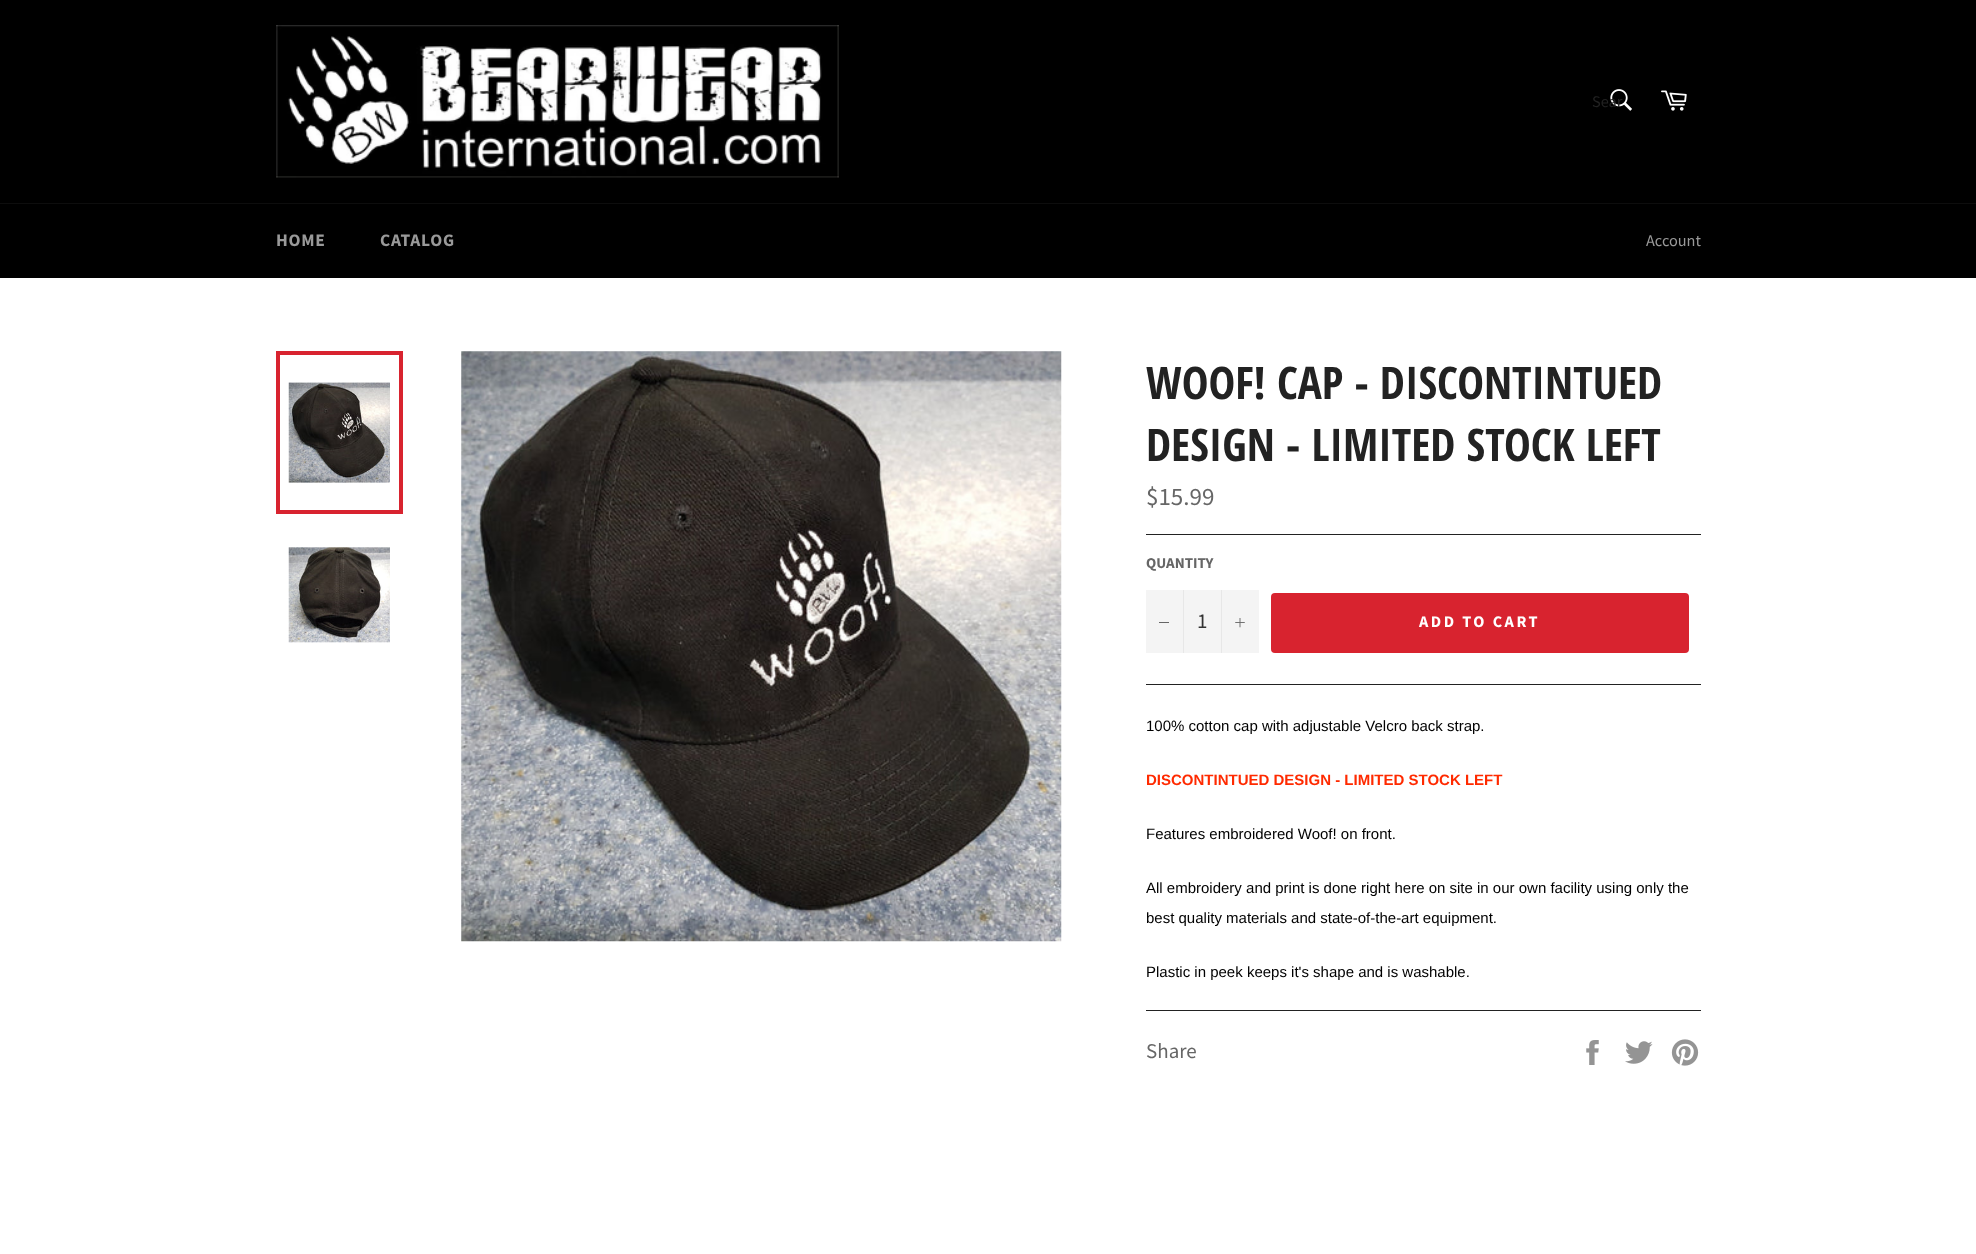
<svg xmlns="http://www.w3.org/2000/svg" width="1976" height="1254">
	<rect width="100%" height="100%" fill="#000000" />
	<image x="276" y="25" width="563" height="153" href="assets/img1.png" />
	<image x="1610" y="89" width="22" height="22" href="assets/img2.png" />
	<text x="1592" y="107" font-family="Source Sans Pro" font-size="16.25" fill="#222222">Sear</text>
	<image x="1661" y="90" width="26" height="21" href="assets/img3.png" />
	<rect x="0" y="203" width="1976" height="1" fill="#0D0D0D" />
	<g font-family="Source Sans Pro" font-size="17.5" font-weight="700" letter-spacing="0.75" fill="#999999">
		<text x="276" y="246">HOME</text>
		<text x="380" y="246">CATALOG</text>
	</g>
	<text x="1646" y="246" font-family="Source Sans Pro" font-size="16.25" fill="#999999">Account</text>
	<rect x="0" y="278" width="1976" height="976" fill="#FFFFFF" />
	<image x="288" y="382" width="102" height="101" href="assets/img4.png" />
	<rect x="278" y="353" width="123" height="159" fill="none" stroke="#D8232F" stroke-width="4" />
	<image x="288" y="547" width="102" height="96" href="assets/img5.png" />
	<image x="461" y="351" width="601" height="591" href="assets/img6.png" />
	<g font-family="Open Sans Condensed" font-size="45" font-weight="700" fill="#222222">
		<text x="1146" y="399">WOOF! CAP - DISCONTINTUED</text>
		<text x="1146" y="461">DESIGN - LIMITED STOCK LEFT</text>
	</g>
	<text x="1146" y="505" font-family="Source Sans Pro" font-size="25" fill="#666666">$15.99</text>
	<rect x="1146" y="534" width="555" height="1" fill="#222222" />
	<text x="1146" y="568" font-family="Source Sans Pro" font-size="15" font-weight="700" fill="#666666">QUANTITY</text>
	<rect x="1146" y="590" width="113" height="63" fill="#F4F4F4" />
	<rect x="1183" y="590" width="1" height="63" fill="#E7E7E7" />
	<rect x="1159" y="622" width="10" height="1" fill="#666666" />
	<text x="1197" y="628" font-family="Source Sans Pro" font-size="21" fill="#333333">1</text>
	<rect x="1221" y="590" width="1" height="63" fill="#E7E7E7" />
	<image x="1235" y="618" width="10" height="10" href="assets/img7.png" />
	<rect x="1271" y="593" width="418" height="60" rx="4" fill="#D8232F" />
	<text x="1419" y="627" font-family="Source Sans Pro" font-size="16.25" font-weight="700" letter-spacing="2.5" fill="#FFFFFF">ADD TO CART</text>
	<rect x="1146" y="684" width="555" height="1" fill="#222222" />
	<text x="1146" y="731" font-family="Liberation Sans" font-size="15" fill="#000000">100% cotton cap with adjustable Velcro back strap.</text>
	<text x="1146" y="785" font-family="Liberation Sans" font-size="15" font-weight="700" fill="#FF2A00">DISCONTINTUED DESIGN - LIMITED STOCK LEFT</text>
	<g font-family="Liberation Sans" font-size="15" fill="#000000">
		<text x="1146" y="839">Features embroidered Woof! on front.</text>
		<text x="1146" y="893">All embroidery and print is done right here on site in our own facility using only the</text>
		<text x="1146" y="923">best quality materials and state-of-the-art equipment.</text>
		<text x="1146" y="977">Plastic in peek keeps it's shape and is washable.</text>
	</g>
	<rect x="1146" y="1010" width="555" height="1" fill="#222222" />
	<text x="1146" y="1058" font-family="Source Sans Pro" font-size="21" fill="#666666">Share</text>
	<image x="1586" y="1040" width="13" height="25" href="assets/img8.png" />
	<image x="1625" y="1041" width="28" height="23" href="assets/img9.png" />
	<image x="1671" y="1039" width="28" height="27" href="assets/img10.png" />
</svg>
